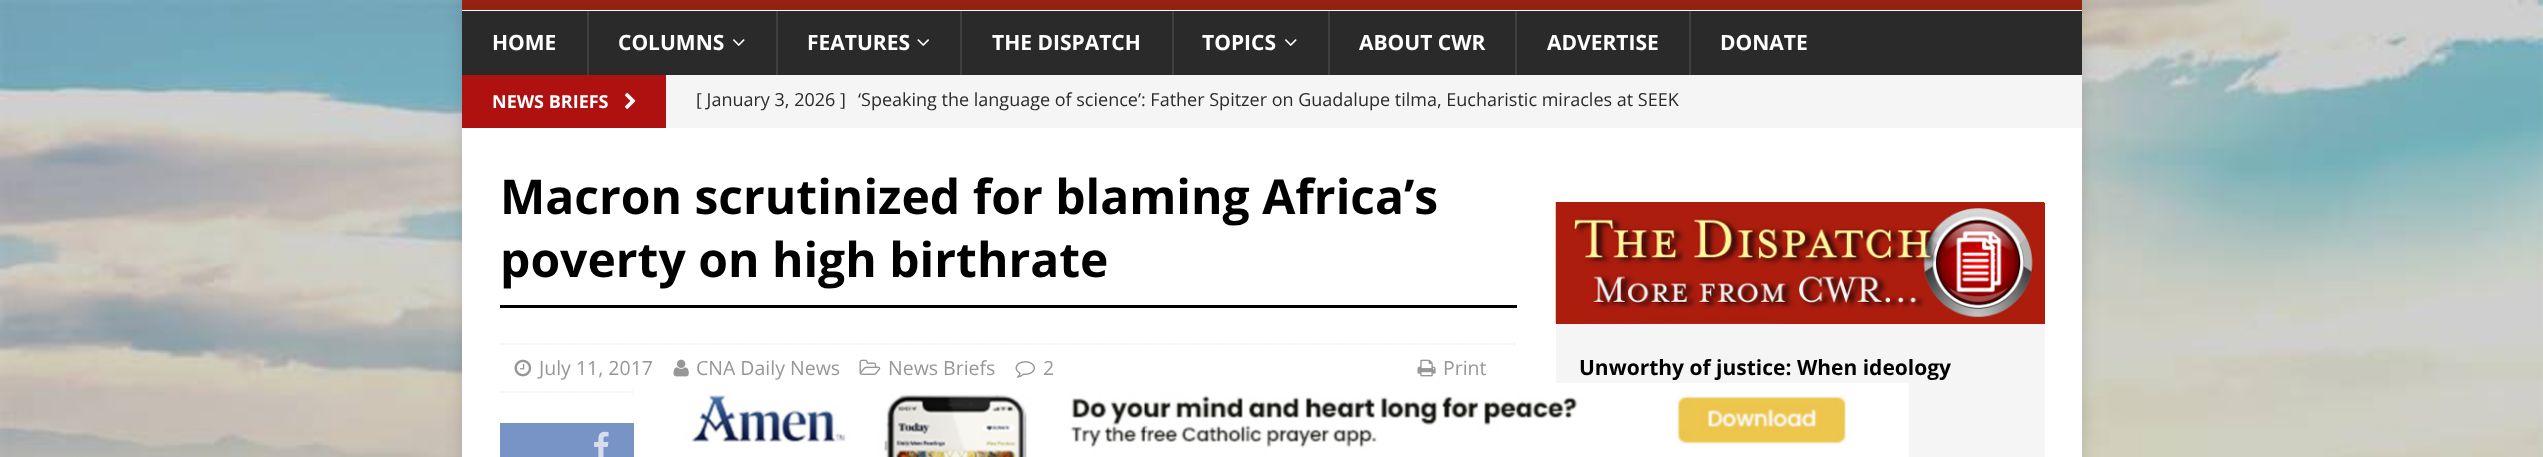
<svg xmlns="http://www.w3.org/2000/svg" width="2543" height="457">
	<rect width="100%" height="100%" fill="#FFFFFF" />
	<image x="0" y="0" width="2543" height="457" href="assets/img1.png" />
	<rect x="462" y="-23" width="1620" height="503" fill="#323232" fill-opacity="0.17" filter="blur(7.5px)" />
	<rect x="462" y="10" width="1620" height="1" fill="#FFFFFF" />
	<image x="462" y="0" width="1620" height="10" href="assets/img2.png" />
	<rect x="462" y="11" width="1620" height="64" fill="#2A2A2A" />
	<text x="492" y="50" font-family="Open Sans" font-size="21" font-weight="700" fill="#FFFFFF">HOME</text>
	<rect x="587" y="11" width="2" height="64" fill="#3F3F3F" />
	<text x="618" y="50" font-family="Open Sans" font-size="21" font-weight="700" fill="#FFFFFF">COLUMNS</text>
	<image x="733" y="39" width="12" height="7" href="assets/img3.png" />
	<rect x="776" y="11" width="2" height="64" fill="#3F3F3F" />
	<text x="807" y="50" font-family="Open Sans" font-size="21" font-weight="700" fill="#FFFFFF">FEATURES</text>
	<image x="917" y="39" width="12" height="7" href="assets/img4.png" />
	<rect x="960" y="11" width="2" height="64" fill="#3F3F3F" />
	<text x="992" y="50" font-family="Open Sans" font-size="21" font-weight="700" fill="#FFFFFF">THE DISPATCH</text>
	<rect x="1172" y="11" width="2" height="64" fill="#3F3F3F" />
	<text x="1202" y="50" font-family="Open Sans" font-size="21" font-weight="700" fill="#FFFFFF">TOPICS</text>
	<image x="1285" y="39" width="12" height="7" href="assets/img3.png" />
	<rect x="1328" y="11" width="2" height="64" fill="#3F3F3F" />
	<text x="1359" y="50" font-family="Open Sans" font-size="21" font-weight="700" fill="#FFFFFF">ABOUT CWR</text>
	<rect x="1515" y="11" width="2" height="64" fill="#3F3F3F" />
	<text x="1547" y="50" font-family="Open Sans" font-size="21" font-weight="700" fill="#FFFFFF">ADVERTISE</text>
	<rect x="1689" y="11" width="2" height="64" fill="#3F3F3F" />
	<text x="1720" y="50" font-family="Open Sans" font-size="21" font-weight="700" fill="#FFFFFF">DONATE</text>
	<rect x="666" y="75" width="1416" height="53" fill="#F5F5F5" />
	<rect x="462" y="75" width="204" height="53" fill="#AF1111" />
	<text x="492" y="108" font-family="Open Sans" font-size="18" font-weight="700" fill="#FFFFFF">NEWS BRIEFS</text>
	<image x="624" y="92" width="12" height="17" href="assets/img5.png" />
	<g font-family="Open Sans" font-size="18" fill="#2A2A2A">
		<text x="696" y="106">[ January 3, 2026 ]</text>
		<text x="858" y="106">‘Speaking the language of science’: Father Spitzer on Guadalupe tilma, Eucharistic miracles at SEEK</text>
	</g>
	<rect x="462" y="128" width="1620" height="329" fill="#FFFFFF" />
	<rect x="500" y="305" width="1017" height="3" fill="#000000" />
	<g font-family="Open Sans" font-size="48" font-weight="700" fill="#000000">
		<text x="500" y="214">Macron scrutinized for blaming Africa’s</text>
		<text x="500" y="277">poverty on high birthrate</text>
	</g>
	<path d="M499.5 344H1516.5" fill="none" stroke="#EBEBEB" stroke-width="1.5" stroke-dasharray="1.5 1.5" />
	<path d="M499.5 392H1516.5" fill="none" stroke="#EBEBEB" stroke-width="1.5" stroke-dasharray="1.5 1.5" />
	<image x="514" y="359" width="18" height="18" href="assets/img6.png" />
	<text x="539" y="375" font-family="Open Sans" font-size="19.5" fill="#979797">July 11, 2017</text>
	<image x="673" y="359" width="16" height="18" href="assets/img7.png" />
	<text x="696" y="375" font-family="Open Sans" font-size="19.5" fill="#979797">CNA Daily News</text>
	<image x="859" y="359" width="22" height="16" href="assets/img8.png" />
	<text x="888" y="375" font-family="Open Sans" font-size="19.5" fill="#979797">News Briefs</text>
	<image x="1015" y="361" width="20" height="17" href="assets/img9.png" />
	<text x="1043" y="375" font-family="Open Sans" font-size="19.5" fill="#979797">2</text>
	<image x="1417" y="359" width="19" height="18" href="assets/img10.png" />
	<text x="1443" y="375" font-family="Open Sans" font-size="19.5" fill="#979797">Print</text>
	<rect x="500" y="423" width="134" height="34" fill="#7893C6" />
	<image x="594" y="431" width="15" height="26" href="assets/img11.png" />
	<rect x="1556" y="324" width="489" height="133" fill="#F5F5F5" />
	<rect x="1556" y="203" width="489" height="121" fill="#AC1D0E" />
	<image x="1555" y="202" width="490" height="122" href="assets/img12.png" />
	<text x="1579" y="375" font-family="Open Sans" font-size="21" font-weight="700" fill="#000000">Unworthy of justice: When ideology</text>
	<image x="634" y="383" width="1275" height="74" href="assets/img13.png" />
</svg>
